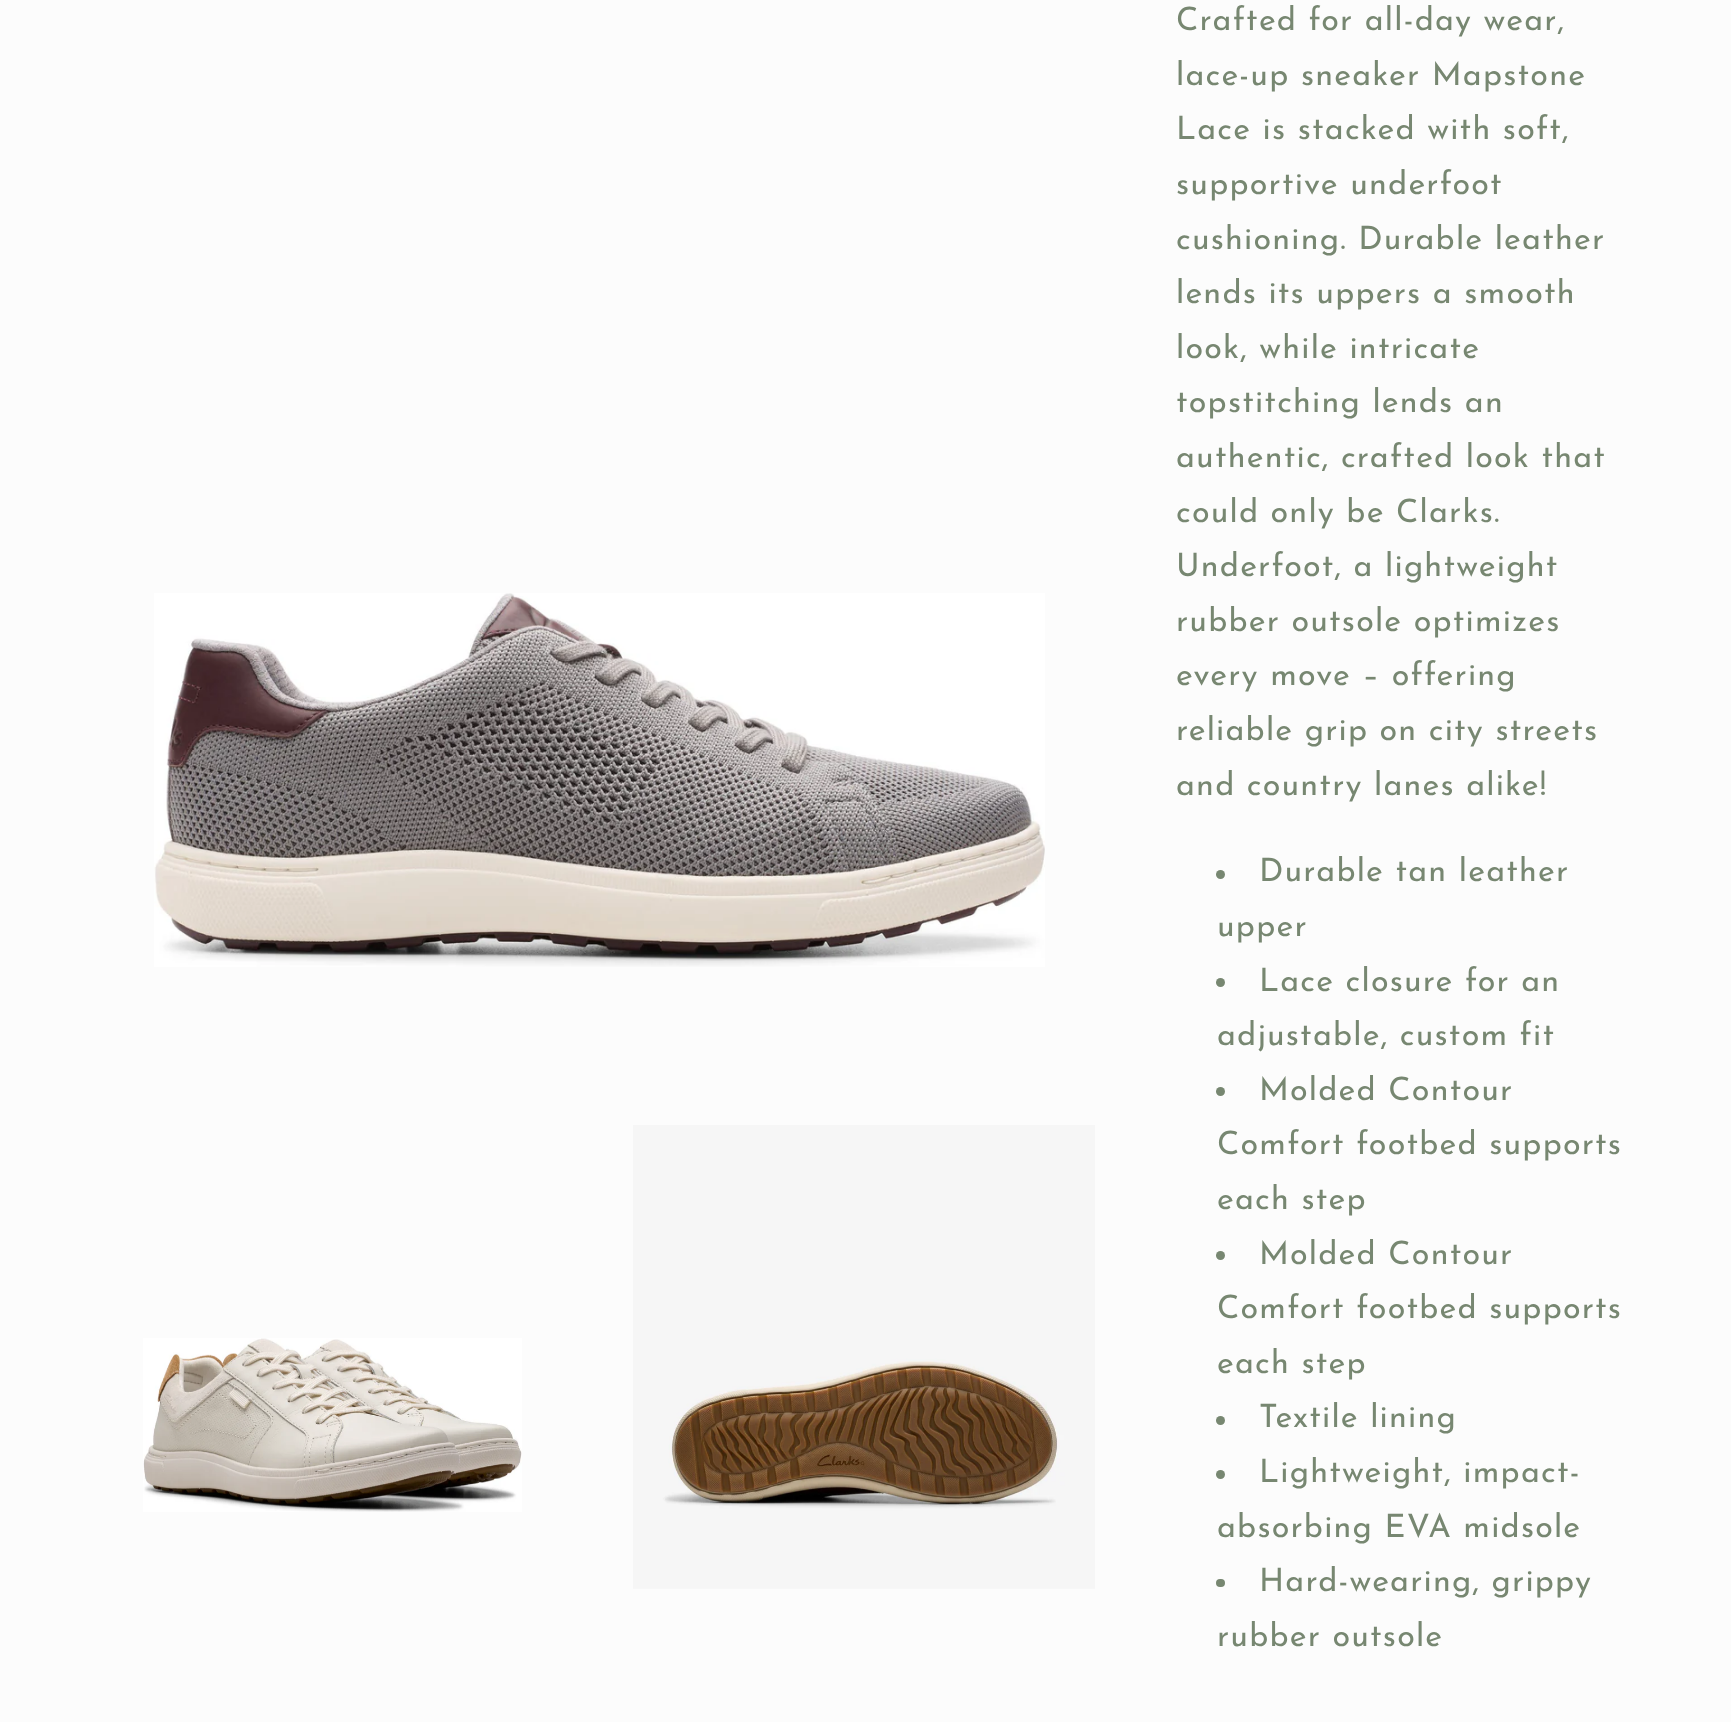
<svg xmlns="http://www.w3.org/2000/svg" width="1731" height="1722">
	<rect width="100%" height="100%" fill="#FCFCFC" />
	<image x="154" y="593" width="891" height="374" href="assets/img1.png" />
	<image x="143" y="1338" width="379" height="174" href="assets/img2.png" />
	<image x="633" y="1125" width="462" height="464" href="assets/img3.png" />
	<g font-family="Josefin Sans" font-size="32.25" letter-spacing="1.2" fill="#778771">
		<text x="1176" y="30">Crafted for all-day wear,</text>
		<text x="1176" y="85">lace-up sneaker Mapstone</text>
		<text x="1176" y="139">Lace is stacked with soft,</text>
		<text x="1176" y="194">supportive underfoot</text>
		<text x="1176" y="249">cushioning. Durable leather</text>
		<text x="1176" y="303">lends its uppers a smooth</text>
		<text x="1176" y="358">look, while intricate</text>
		<text x="1176" y="412">topstitching lends an</text>
		<text x="1176" y="467">authentic, crafted look that</text>
		<text x="1176" y="522">could only be Clarks.</text>
		<text x="1176" y="576">Underfoot, a lightweight</text>
		<text x="1176" y="631">rubber outsole optimizes</text>
		<text x="1176" y="685">every move – offering</text>
		<text x="1176" y="740">reliable grip on city streets</text>
		<text x="1176" y="795">and country lanes alike!</text>
	</g>
	<circle cx="1220.5" cy="874.5" r="4.5" fill="#778771" />
	<g font-family="Josefin Sans" font-size="32.25" letter-spacing="1.2" fill="#778771">
		<text x="1259" y="881">Durable tan leather</text>
		<text x="1217" y="936">upper</text>
	</g>
	<circle cx="1220.5" cy="982.5" r="4.5" fill="#778771" />
	<g font-family="Josefin Sans" font-size="32.25" letter-spacing="1.2" fill="#778771">
		<text x="1259" y="991">Lace closure for an</text>
		<text x="1217" y="1045">adjustable, custom fit</text>
	</g>
	<circle cx="1220.5" cy="1091.5" r="4.5" fill="#778771" />
	<g font-family="Josefin Sans" font-size="32.25" letter-spacing="1.2" fill="#778771">
		<text x="1259" y="1100">Molded Contour</text>
		<text x="1217" y="1154">Comfort footbed supports</text>
		<text x="1217" y="1209">each step</text>
	</g>
	<circle cx="1220.5" cy="1255.5" r="4.5" fill="#778771" />
	<g font-family="Josefin Sans" font-size="32.25" letter-spacing="1.2" fill="#778771">
		<text x="1259" y="1264">Molded Contour</text>
		<text x="1217" y="1318">Comfort footbed supports</text>
		<text x="1217" y="1373">each step</text>
	</g>
	<circle cx="1220.5" cy="1420.5" r="4.5" fill="#778771" />
	<text x="1259" y="1427" font-family="Josefin Sans" font-size="32.25" letter-spacing="1.2" fill="#778771">Textile lining</text>
	<circle cx="1220.5" cy="1474.5" r="4.5" fill="#778771" />
	<g font-family="Josefin Sans" font-size="32.25" letter-spacing="1.2" fill="#778771">
		<text x="1259" y="1482">Lightweight, impact-</text>
		<text x="1217" y="1537">absorbing EVA midsole</text>
	</g>
	<rect x="1216" y="1579" width="9" height="8" rx="4" fill="#778771" />
	<g font-family="Josefin Sans" font-size="32.25" letter-spacing="1.2" fill="#778771">
		<text x="1259" y="1591">Hard-wearing, grippy</text>
		<text x="1217" y="1646">rubber outsole</text>
	</g>
</svg>
